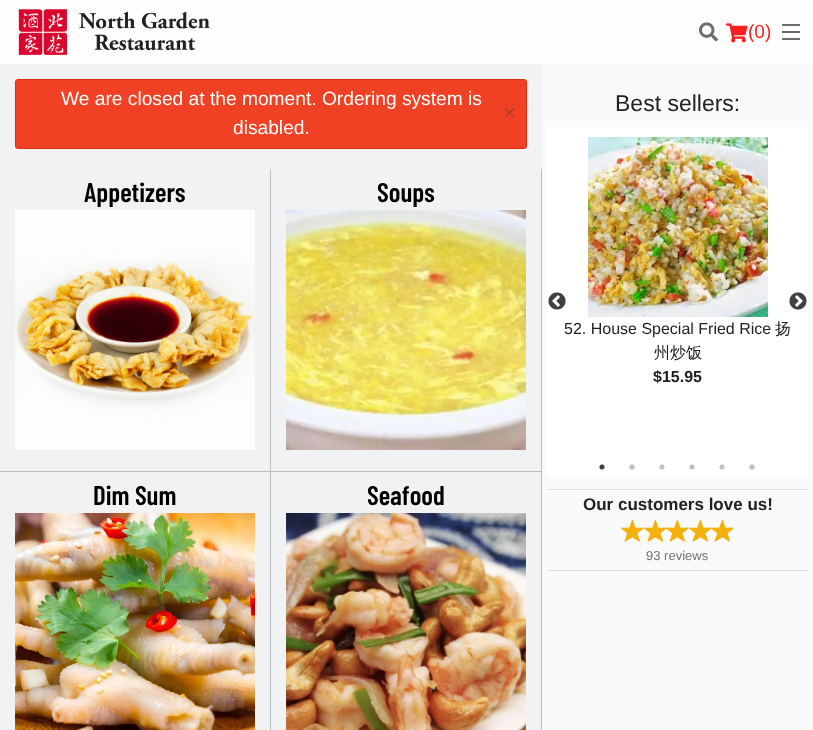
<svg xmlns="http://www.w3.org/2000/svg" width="813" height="730">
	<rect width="100%" height="100%" fill="#F1F2F3" />
	<rect x="0" y="0" width="813" height="64" fill="#FEFEFE" />
	<image x="18" y="9" width="192" height="46" href="assets/img1.png" />
	<image x="699" y="22" width="19" height="20" href="assets/img2.png" />
	<image x="726" y="23" width="22" height="20" href="assets/img3.png" />
	<text x="748" y="38" font-family="Liberation Sans" font-size="19" fill="#FB2020">(0)</text>
	<rect x="782" y="38" width="18" height="2" fill="#6D6D6D" />
	<rect x="782" y="31" width="18" height="2" fill="#6D6D6D" />
	<rect x="782" y="24" width="18" height="2" fill="#6D6D6D" />
	<rect x="15.5" y="79.5" width="511" height="69" rx="2.5" fill="#F04124" stroke="#DE2D0F" />
	<text x="61" y="105" font-family="Liberation Sans" font-size="19.2" fill="#FFFFFF">We are closed at the moment. Ordering system is</text>
	<text x="503" y="120" font-family="Liberation Sans" font-size="22" fill="#B73D29">×</text>
	<text x="233" y="134" font-family="Liberation Sans" font-size="19.2" fill="#FFFFFF">disabled.</text>
	<rect x="270" y="169" width="1" height="561" fill="#BDBDBD" />
	<rect x="0" y="471" width="271" height="1" fill="#BDBDBD" />
	<text x="84" y="202" font-family="Barlow Condensed" font-size="27" font-weight="600" fill="#000000">Appetizers</text>
	<image x="15" y="210" width="240" height="240" href="assets/img4.png" />
	<rect x="541" y="169" width="1" height="561" fill="#BDBDBD" />
	<rect x="271" y="471" width="271" height="1" fill="#BDBDBD" />
	<text x="377" y="202" font-family="Barlow Condensed" font-size="27" font-weight="600" fill="#000000">Soups</text>
	<image x="286" y="210" width="240" height="240" href="assets/img5.png" />
	<text x="93" y="505" font-family="Barlow Condensed" font-size="27" font-weight="600" fill="#000000">Dim Sum</text>
	<image x="15" y="513" width="240" height="217" href="assets/img6.png" />
	<text x="367" y="505" font-family="Barlow Condensed" font-size="27" font-weight="600" fill="#000000">Seafood</text>
	<image x="286" y="513" width="240" height="217" href="assets/img7.png" />
	<rect x="542" y="64" width="271" height="666" fill="#FAFAFA" />
	<text x="615" y="111" font-family="Liberation Sans" font-size="23" fill="#222222">Best sellers:</text>
	<rect x="547" y="127" width="261" height="350" fill="#FFFFFF" />
	<image x="548" y="292" width="18" height="18" href="assets/img8.png" />
	<image x="789" y="292" width="18" height="18" href="assets/img9.png" />
	<image x="588" y="137" width="180" height="180" href="assets/img10.png" />
	<text x="564" y="334" font-family="Liberation Sans" font-size="16" fill="#222222">52. House Special Fried Rice</text>
	<g font-family="WenQuanYi Zen Hei" font-size="16" font-weight="500" fill="#222222">
		<text x="775" y="334">扬</text>
		<text x="654" y="358">州炒饭</text>
	</g>
	<text x="653" y="382" font-family="Liberation Sans" font-size="16" font-weight="700" fill="#222222">$15.95</text>
	<image x="599" y="464" width="6" height="6" href="assets/img11.png" />
	<image x="629" y="464" width="6" height="6" href="assets/img12.png" />
	<image x="659" y="464" width="6" height="6" href="assets/img12.png" />
	<image x="689" y="464" width="6" height="6" href="assets/img12.png" />
	<image x="719" y="464" width="6" height="6" href="assets/img12.png" />
	<image x="749" y="464" width="6" height="6" href="assets/img12.png" />
	<rect x="547" y="489" width="261" height="1" fill="#DDDDDD" />
	<text x="583" y="510" font-family="Liberation Sans" font-size="17" font-weight="700" fill="#222222">Our customers love us!</text>
	<image x="621" y="519" width="23" height="23" href="assets/img13.png" />
	<image x="644" y="519" width="23" height="23" href="assets/img13.png" />
	<image x="666" y="519" width="23" height="23" href="assets/img14.png" />
	<image x="689" y="519" width="23" height="23" href="assets/img13.png" />
	<image x="711" y="519" width="23" height="23" href="assets/img14.png" />
	<text x="646" y="560" font-family="Liberation Sans" font-size="13" fill="#737373">93 reviews</text>
	<rect x="547" y="570" width="261" height="1" fill="#DDDDDD" />
</svg>
